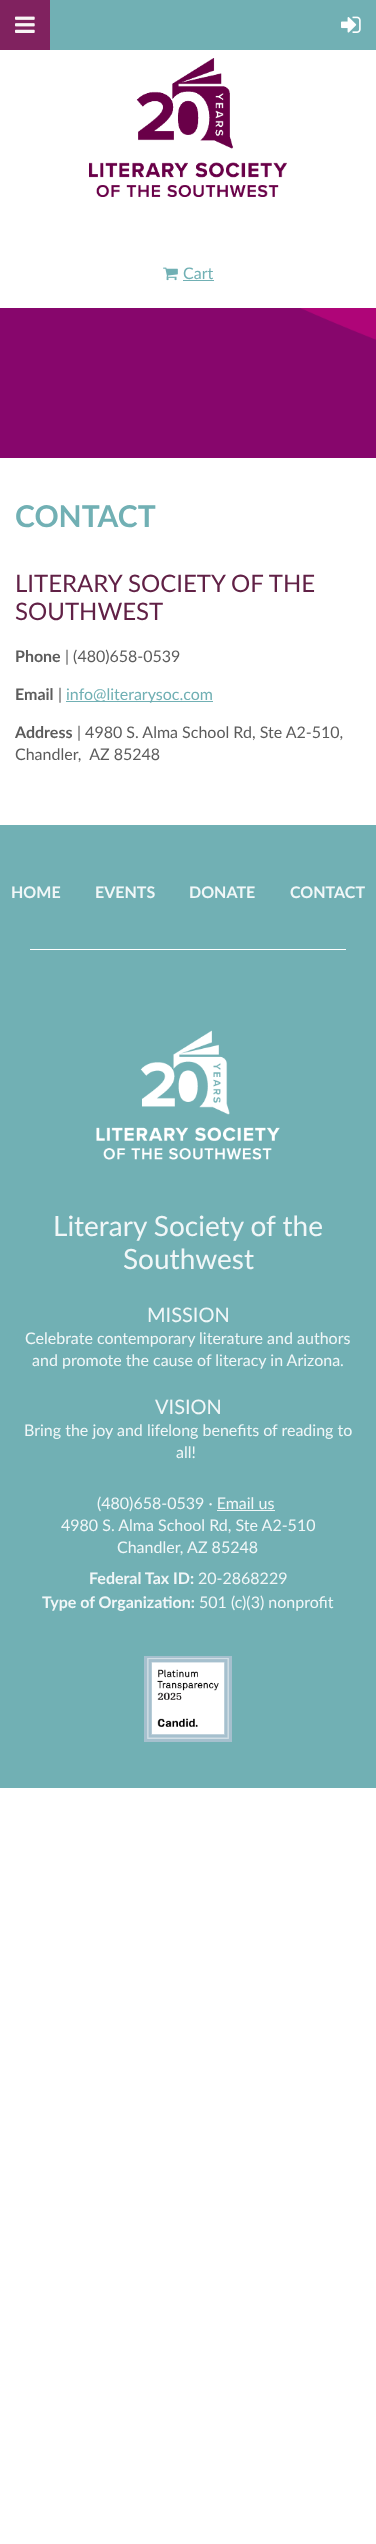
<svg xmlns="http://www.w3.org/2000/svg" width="376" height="2544">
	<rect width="100%" height="100%" fill="#FFFFFF" />
	<rect x="50" y="0" width="326" height="50" fill="#71B0B4" />
	<rect x="0" y="0" width="50" height="50" fill="#80225F" />
	<image x="15" y="16" width="20" height="17" href="assets/img1.png" />
	<image x="341" y="16" width="20" height="17" href="assets/img2.png" />
	<image x="89" y="58" width="198" height="139" href="assets/img3.png" />
	<image x="163" y="267" width="15" height="14" href="assets/img4.png" />
	<text x="183" y="279" font-family="Lato" font-size="16" fill="#71B0B4">Cart</text>
	<rect x="183" y="280" width="31" height="1" fill="#71B0B4" />
	<image x="0" y="308" width="376" height="150" href="assets/img5.png" />
	<text x="15" y="527" font-family="Lato" font-size="30" font-weight="700" fill="#71B0B4">CONTACT</text>
	<g font-family="Lato" font-size="24" fill="#612146">
		<text x="15" y="592">LITERARY SOCIETY OF THE</text>
		<text x="15" y="620">SOUTHWEST</text>
	</g>
	<text x="15" y="662" font-family="Lato" font-size="16" font-weight="700" fill="#5C5C5C">Phone</text>
	<text x="65" y="662" font-family="Lato" font-size="16" fill="#5C5C5C">| (480)658-0539</text>
	<text x="15" y="700" font-family="Lato" font-size="16" font-weight="700" fill="#5C5C5C">Email</text>
	<text x="58" y="700" font-family="Lato" font-size="16" fill="#5C5C5C">|</text>
	<rect x="66" y="701" width="147" height="1" fill="#71B0B4" />
	<text x="66" y="700" font-family="Lato" font-size="16" fill="#71B0B4">info@literarysoc.com</text>
	<text x="15" y="738" font-family="Lato" font-size="16" font-weight="700" fill="#5C5C5C">Address</text>
	<g font-family="Lato" font-size="16" fill="#5C5C5C">
		<text x="77" y="738">| 4980 S. Alma School Rd, Ste A2-510,</text>
		<text x="15" y="760" xml:space="preserve">Chandler,  AZ 85248</text>
	</g>
	<rect x="0" y="825" width="376" height="963" fill="#71B0B4" />
	<g font-family="Lato" font-size="16" font-weight="700" fill="#F1F7F8">
		<text x="11" y="898">HOME</text>
		<text x="95" y="898">EVENTS</text>
		<text x="189" y="898">DONATE</text>
		<text x="290" y="898">CONTACT</text>
	</g>
	<rect x="30" y="949" width="316" height="1" fill="#FFFFFF" />
	<image x="96" y="1030" width="184" height="130" href="assets/img6.png" />
	<g font-family="Lato" font-size="28" fill="#F1F7F8">
		<text x="53" y="1236">Literary Society of the</text>
		<text x="123" y="1269">Southwest</text>
	</g>
	<text x="147" y="1322" font-family="Lato" font-size="20" fill="#F1F7F8">MISSION</text>
	<g font-family="Lato" font-size="16" fill="#F1F7F8">
		<text x="25" y="1344">Celebrate contemporary literature and authors</text>
		<text x="32" y="1366">and promote the cause of literacy in Arizona.</text>
	</g>
	<text x="155" y="1414" font-family="Lato" font-size="20" fill="#F1F7F8">VISION</text>
	<g font-family="Lato" font-size="16" fill="#F1F7F8">
		<text x="24" y="1436">Bring the joy and lifelong benefits of reading to</text>
		<text x="176" y="1458">all!</text>
		<text x="97" y="1509">(480)658-0539 · Email us</text>
	</g>
	<rect x="217" y="1510" width="58" height="1" fill="#F1F7F8" />
	<g font-family="Lato" font-size="16" fill="#F1F7F8">
		<text x="61" y="1531">4980 S. Alma School Rd, Ste A2-510</text>
		<text x="117" y="1553">Chandler, AZ 85248</text>
	</g>
	<text x="89" y="1584" font-family="Lato" font-size="16" font-weight="700" fill="#F1F7F8">Federal Tax ID:</text>
	<text x="198" y="1584" font-family="Lato" font-size="16" fill="#F1F7F8">20-2868229</text>
	<text x="42" y="1608" font-family="Lato" font-size="16" font-weight="700" fill="#F1F7F8">Type of Organization:</text>
	<text x="199" y="1608" font-family="Lato" font-size="16" fill="#F1F7F8">501 (c)(3) nonprofit</text>
	<image x="144" y="1656" width="88" height="86" href="assets/img7.png" />
</svg>
